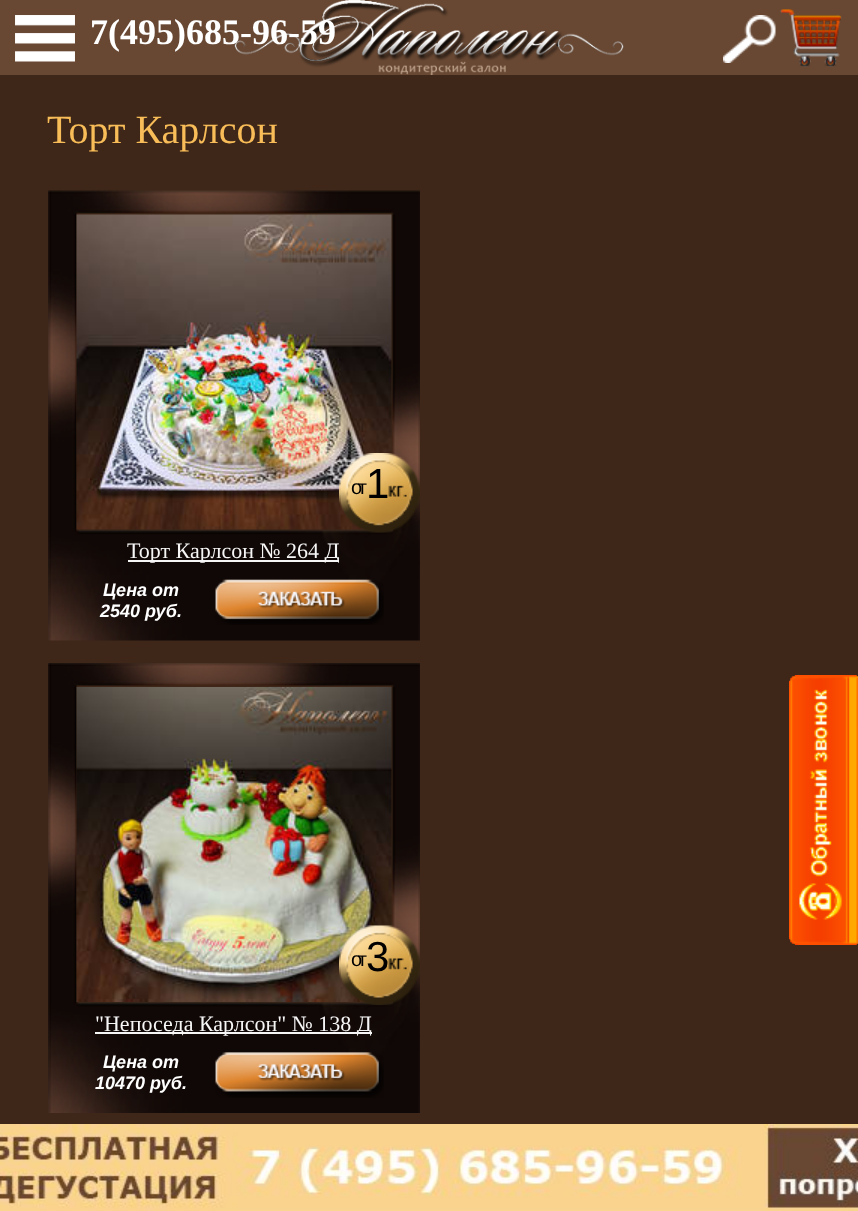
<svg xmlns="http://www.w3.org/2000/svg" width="858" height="1211">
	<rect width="100%" height="100%" fill="#684833" />
	<image x="15" y="15" width="60" height="47" href="assets/img1.png" />
	<image x="234" y="0" width="390" height="75" href="assets/img2.png" />
	<text x="90" y="44" font-family="Liberation Serif" font-size="36" font-weight="700" fill="#FFFFFF">7(495)685-96-59</text>
	<image x="723" y="15" width="53" height="48" href="assets/img3.png" />
	<image x="780" y="9" width="62" height="58" href="assets/img4.png" />
	<rect x="0" y="75" width="858" height="1049" fill="#3E2718" />
	<text x="47" y="143" font-family="Liberation Serif" font-size="40" fill="#F8BD58">Торт Карлсон</text>
	<image x="48" y="190" width="372" height="451" href="assets/img5.png" />
	<image x="76" y="214" width="316" height="316" href="assets/img6.png" />
	<image x="339" y="453" width="81" height="80" href="assets/img7.png" />
	<text x="351" y="494" font-family="Liberation Sans" font-size="20" letter-spacing="-4" fill="#000000">от</text>
	<text x="366" y="498" font-family="Liberation Sans" font-size="42" letter-spacing="-4" fill="#000000">1</text>
	<rect x="128" y="560" width="211" height="2" fill="#F6F6F6" />
	<text x="127" y="558" font-family="Liberation Serif" font-size="22" fill="#F6F6F6">Торт Карлсон № 264 Д</text>
	<g font-family="Liberation Sans" font-size="18" font-weight="700" font-style="italic" fill="#FFFFFF">
		<text x="103" y="596">Цена от</text>
		<text x="100" y="617">2540 руб.</text>
	</g>
	<image x="215" y="579" width="169" height="46" href="assets/img8.png" />
	<image x="48" y="663" width="372" height="450" href="assets/img9.png" />
	<image x="76" y="687" width="316" height="315" href="assets/img10.png" />
	<image x="339" y="925" width="81" height="80" href="assets/img11.png" />
	<text x="351" y="966" font-family="Liberation Sans" font-size="20" letter-spacing="-4" fill="#000000">от</text>
	<text x="366" y="971" font-family="Liberation Sans" font-size="42" letter-spacing="-4" fill="#000000">3</text>
	<rect x="95" y="1032" width="277" height="2" fill="#F6F6F6" />
	<text x="95" y="1031" font-family="Liberation Serif" font-size="22" fill="#F6F6F6">"Непоседа Карлсон" № 138 Д</text>
	<g font-family="Liberation Sans" font-size="18" font-weight="700" font-style="italic" fill="#FFFFFF">
		<text x="103" y="1068">Цена от</text>
		<text x="95" y="1089">10470 руб.</text>
	</g>
	<image x="215" y="1052" width="169" height="46" href="assets/img12.png" />
	<image x="789" y="675" width="69" height="270" href="assets/img13.png" />
	<image x="789" y="675" width="69" height="270" href="assets/img14.png" />
	<image x="0" y="1124" width="858" height="87" href="assets/img15.png" />
</svg>
